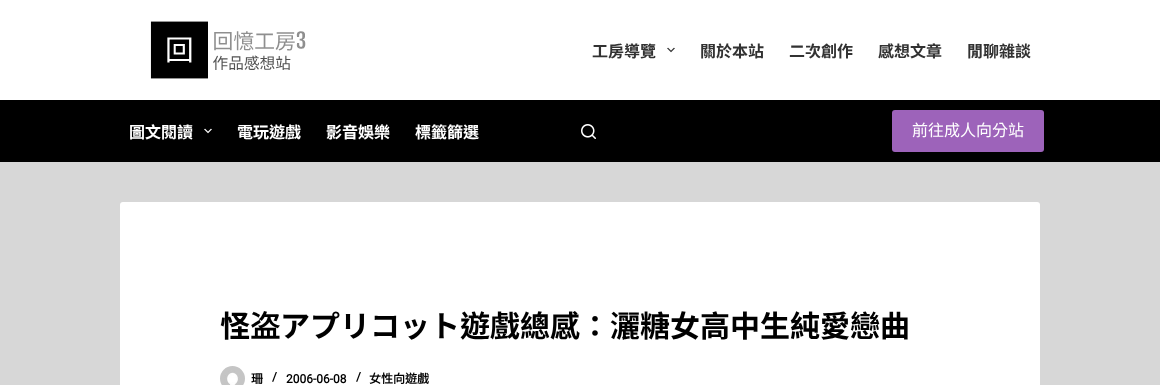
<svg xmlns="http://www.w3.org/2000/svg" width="1160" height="385">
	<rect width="100%" height="100%" fill="#D7D7D7" />
	<rect x="0" y="0" width="1160" height="100" fill="#FFFFFF" />
	<image x="150" y="21" width="156" height="58" href="assets/img1.png" />
	<text x="592" y="57" font-family="Noto Sans TC" font-size="16" font-weight="700" fill="#323232">工房導覽</text>
	<image x="667" y="47" width="8" height="6" href="assets/img2.png" />
	<g font-family="Noto Sans TC" font-size="16" font-weight="700" fill="#323232">
		<text x="700" y="57">關於本站</text>
		<text x="789" y="57">二次創作</text>
		<text x="878" y="57">感想文章</text>
		<text x="967" y="57">閒聊雜談</text>
	</g>
	<rect x="0" y="100" width="1160" height="62" fill="#000000" />
	<text x="129" y="138" font-family="Noto Sans TC" font-size="16" font-weight="700" fill="#FFFFFF">圖文閱讀</text>
	<image x="204" y="128" width="8" height="6" href="assets/img3.png" />
	<g font-family="Noto Sans TC" font-size="16" font-weight="700" fill="#FFFFFF">
		<text x="237" y="138">電玩遊戲</text>
		<text x="326" y="138">影音娛樂</text>
		<text x="415" y="138">標籤篩選</text>
	</g>
	<image x="581" y="124" width="15" height="15" href="assets/img4.png" />
	<rect x="892" y="110" width="152" height="42" rx="3" fill="#9D63BA" />
	<text x="912" y="136" font-family="Noto Sans CJK TC" font-size="16" fill="#FFFFFF">前往成人向分站</text>
	<rect x="120" y="202" width="920" height="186" rx="3" fill="#FFFFFF" />
	<text x="220" y="337" font-family="Noto Sans TC" font-size="30" font-weight="700" fill="#000000">怪</text>
	<text x="250" y="337" font-family="Noto Sans CJK TC" font-size="30" font-weight="700" fill="#000000">盗</text>
	<text x="280" y="337" font-family="Noto Sans TC" font-size="30" font-weight="700" fill="#000000">アプリコット遊戲總感：灑糖女高中生純愛戀曲</text>
	<image x="220" y="366" width="25" height="19" href="assets/img5.png" />
	<text x="251" y="383" font-family="Noto Sans CJK TC" font-size="12" font-weight="700" fill="#000000">珊</text>
	<g font-family="Roboto" font-size="12" font-weight="700" fill="#000000">
		<text x="272" y="381">/</text>
		<text x="286" y="383">2006-06-08</text>
		<text x="356" y="381">/</text>
	</g>
	<text x="369" y="383" font-family="Noto Sans CJK TC" font-size="12" font-weight="700" fill="#000000">女性向遊戲</text>
</svg>
